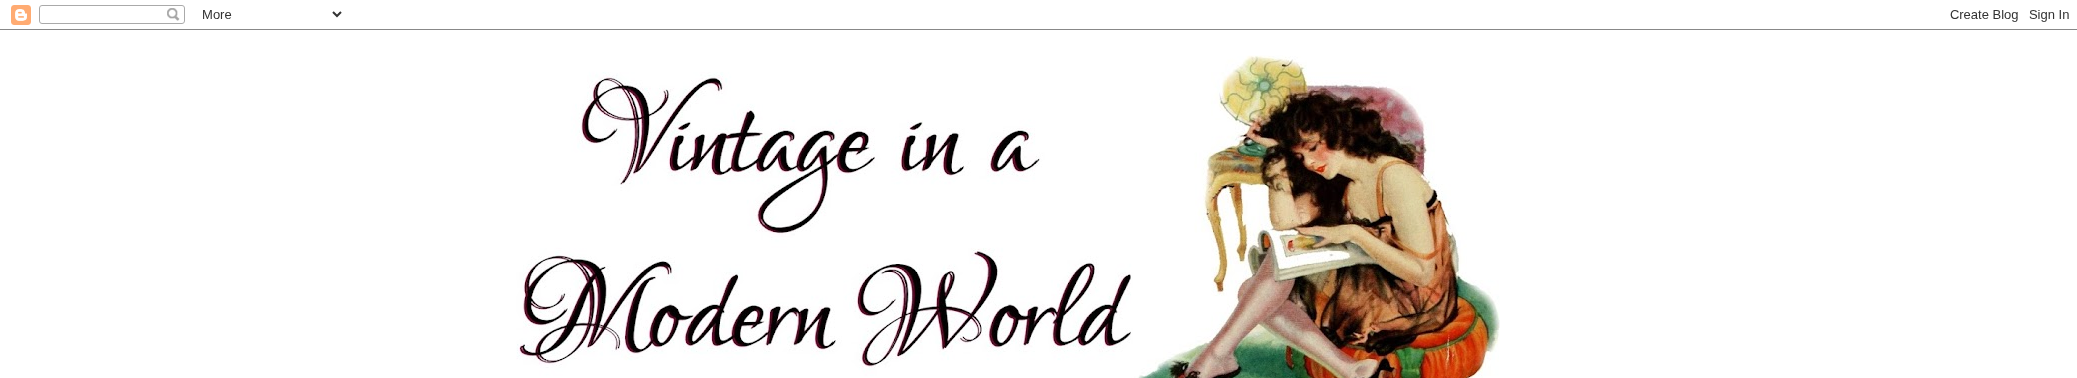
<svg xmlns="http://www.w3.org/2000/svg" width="2077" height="378">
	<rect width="100%" height="100%" fill="#FFFFFF" />
	<image x="0" y="5" width="2077" height="25" href="assets/img1.png" />
	<image x="516" y="55" width="984" height="323" href="assets/img2.png" />
</svg>
